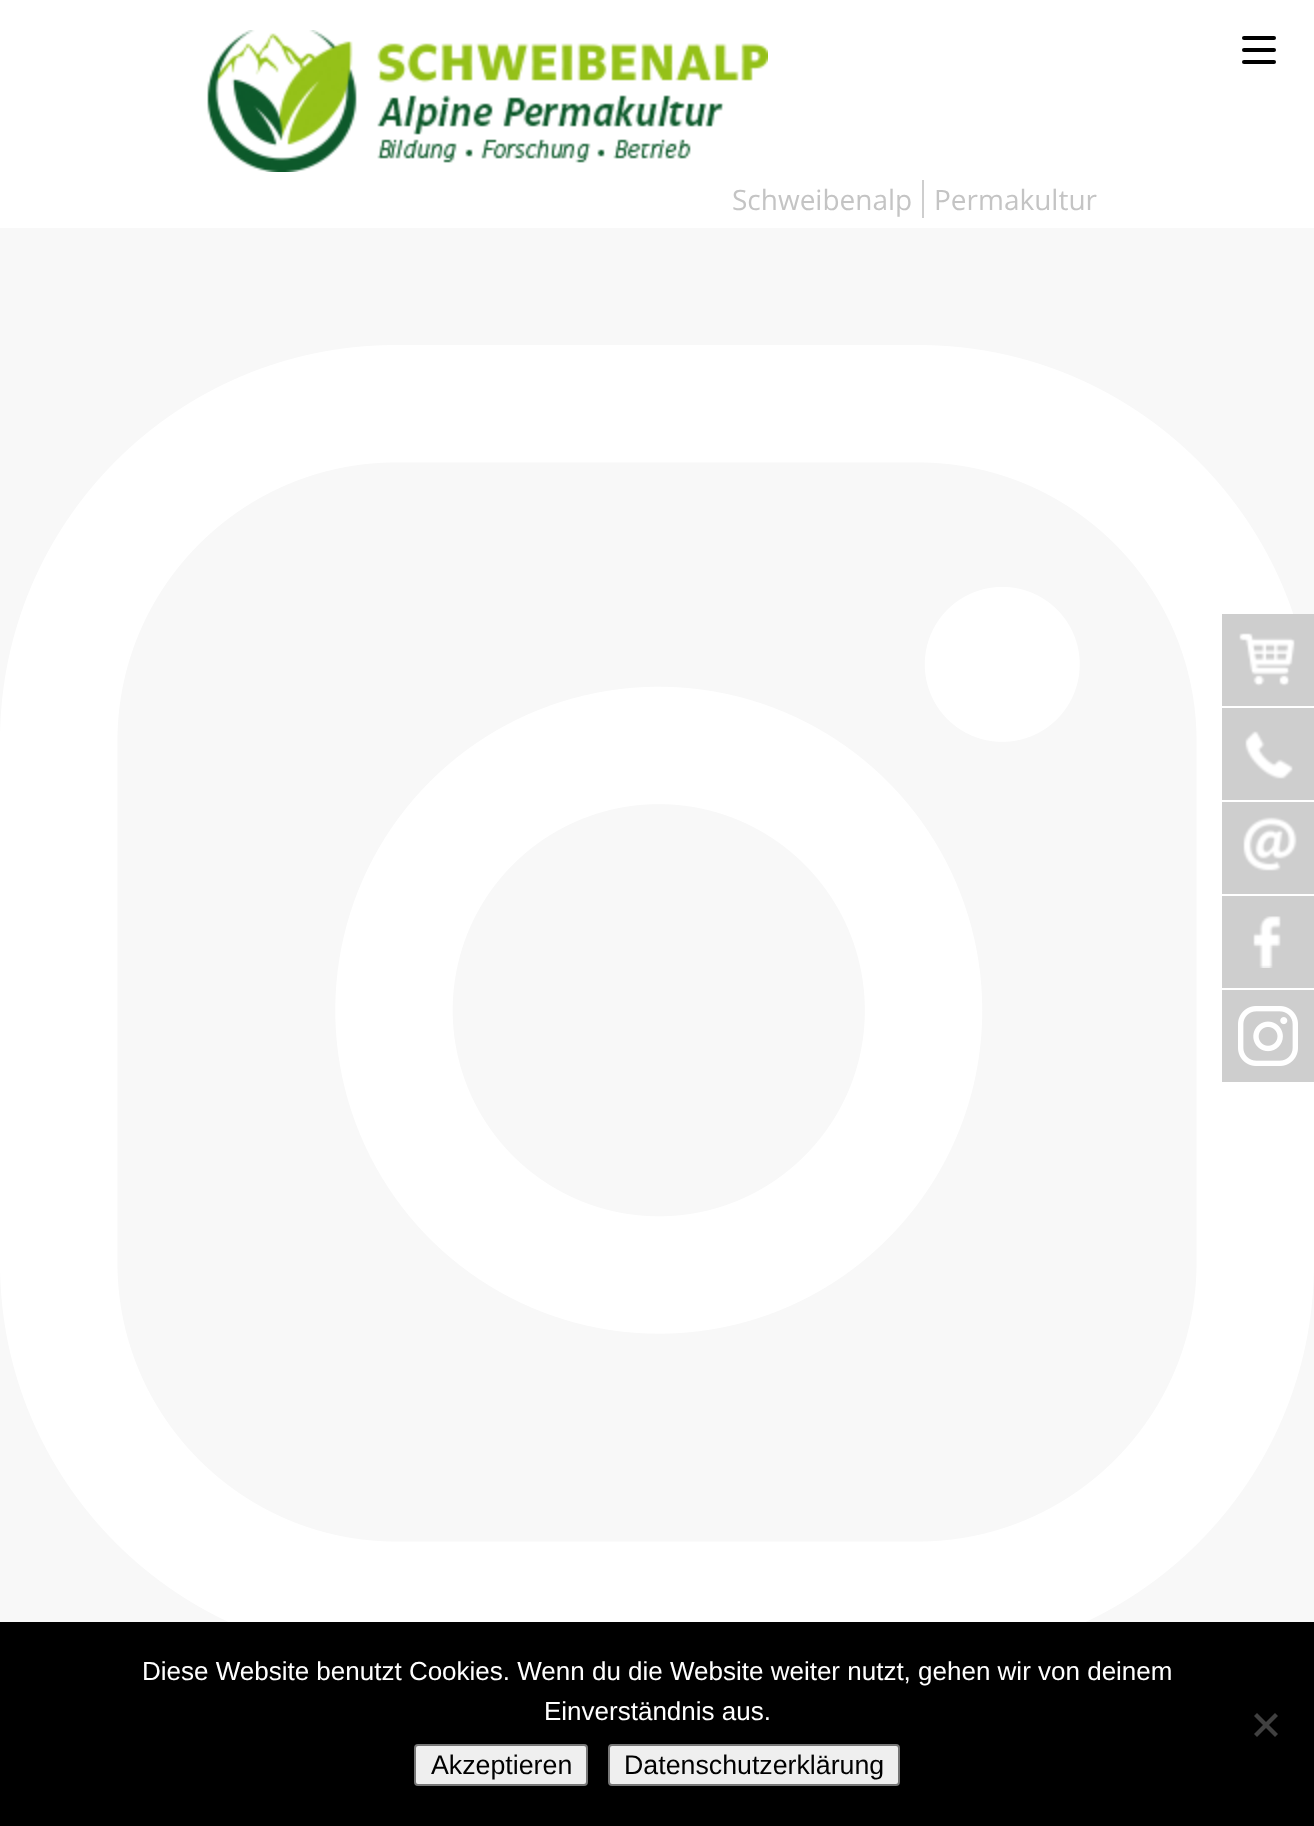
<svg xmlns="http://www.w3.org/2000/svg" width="1314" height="1826">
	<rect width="100%" height="100%" fill="#F8F8F8" />
	<rect x="0" y="0" width="1314" height="228" fill="#FFFFFF" />
	<rect x="1242" y="36" width="34" height="4" rx="2" fill="#000000" />
	<rect x="1242" y="48" width="34" height="4" rx="2" fill="#000000" />
	<rect x="1242" y="60" width="34" height="4" rx="2" fill="#000000" />
	<image x="207" y="30" width="561" height="142" href="assets/img1.png" />
	<text x="732" y="210" font-family="Open Sans" font-size="28" fill="#C4C4C4">Schweibenalp</text>
	<rect x="922" y="180" width="2" height="38" fill="#CECECE" />
	<text x="934" y="210" font-family="Open Sans" font-size="28" fill="#C4C4C4">Permakultur</text>
	<image x="0" y="345" width="1314" height="1277" href="assets/img2.png" />
	<rect x="1222" y="614" width="92" height="92" fill="#CECECE" />
	<image x="1239" y="633" width="56" height="53" href="assets/img3.png" />
	<rect x="1222" y="708" width="92" height="92" fill="#CECECE" />
	<image x="1245" y="731" width="48" height="48" href="assets/img4.png" />
	<rect x="1222" y="802" width="92" height="92" fill="#CECECE" />
	<image x="1243" y="817" width="54" height="54" href="assets/img5.png" />
	<rect x="1222" y="896" width="92" height="92" fill="#CECECE" />
	<image x="1253" y="916" width="28" height="52" href="assets/img6.png" />
	<rect x="1312" y="706" width="2" height="2" fill="#FFFFFF" />
	<rect x="1222" y="990" width="92" height="92" fill="#CECECE" />
	<image x="1238" y="1006" width="60" height="60" href="assets/img7.png" />
	<rect x="0" y="1622" width="1314" height="204" fill="#000000" />
	<g font-family="Liberation Sans" font-size="26" fill="#FFFFFF">
		<text x="142" y="1680">Diese Website benutzt Cookies. Wenn du die Website weiter nutzt, gehen wir von deinem</text>
		<text x="544" y="1720">Einverständnis aus.</text>
	</g>
	<path d="M1275 1713L1278 1716L1257 1737L1254 1734Z" fill="#404040" />
	<path d="M1254 1716L1257 1713L1278 1734L1275 1737Z" fill="#404040" />
	<rect x="415" y="1745" width="172" height="40" rx="3" fill="#EFEFEF" stroke="#767676" stroke-width="2" />
	<text x="431" y="1774" font-family="Liberation Sans" font-size="26.75" fill="#000000">Akzeptieren</text>
	<rect x="609" y="1745" width="290" height="40" rx="3" fill="#EFEFEF" stroke="#767676" stroke-width="2" />
	<text x="624" y="1774" font-family="Liberation Sans" font-size="26.75" fill="#000000">Datenschutzerklärung</text>
</svg>
